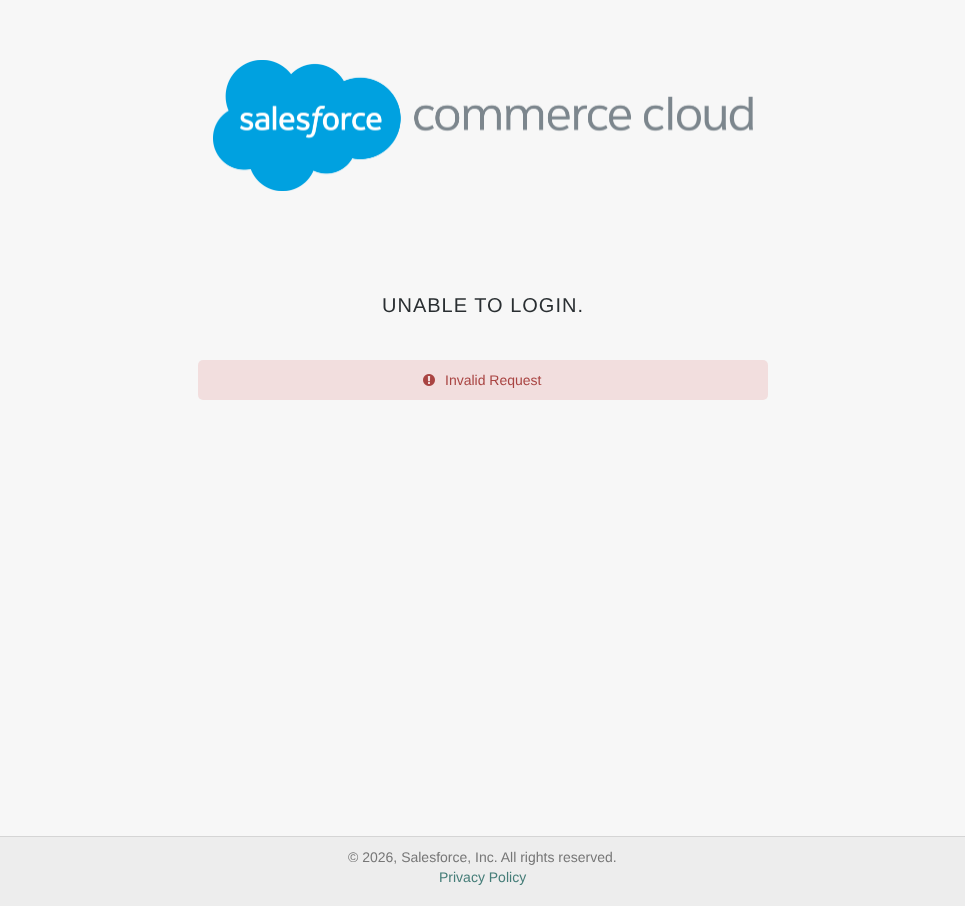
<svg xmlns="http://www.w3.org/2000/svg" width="965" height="906">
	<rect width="100%" height="100%" fill="#F7F7F7" />
	<image x="213" y="60" width="540" height="131" href="assets/img1.png" />
	<text x="382" y="312" font-family="Liberation Sans" font-size="20" letter-spacing="1" fill="#2A2F32">UNABLE TO LOGIN.</text>
	<rect x="198" y="360" width="570" height="40" rx="5" fill="#F2DEDE" />
	<image x="423" y="374" width="12" height="12" href="assets/img2.png" />
	<text x="445" y="385" font-family="Liberation Sans" font-size="14" fill="#A94442">Invalid Request</text>
	<rect x="0" y="837" width="965" height="69" fill="#EDEDED" />
	<rect x="0" y="836" width="965" height="1" fill="#D5D5D5" />
	<text x="348" y="862" font-family="Liberation Sans" font-size="14" fill="#777777">© 2026, Salesforce, Inc. All rights reserved.</text>
	<text x="439" y="882" font-family="Liberation Sans" font-size="14" fill="#457D78">Privacy Policy</text>
</svg>
